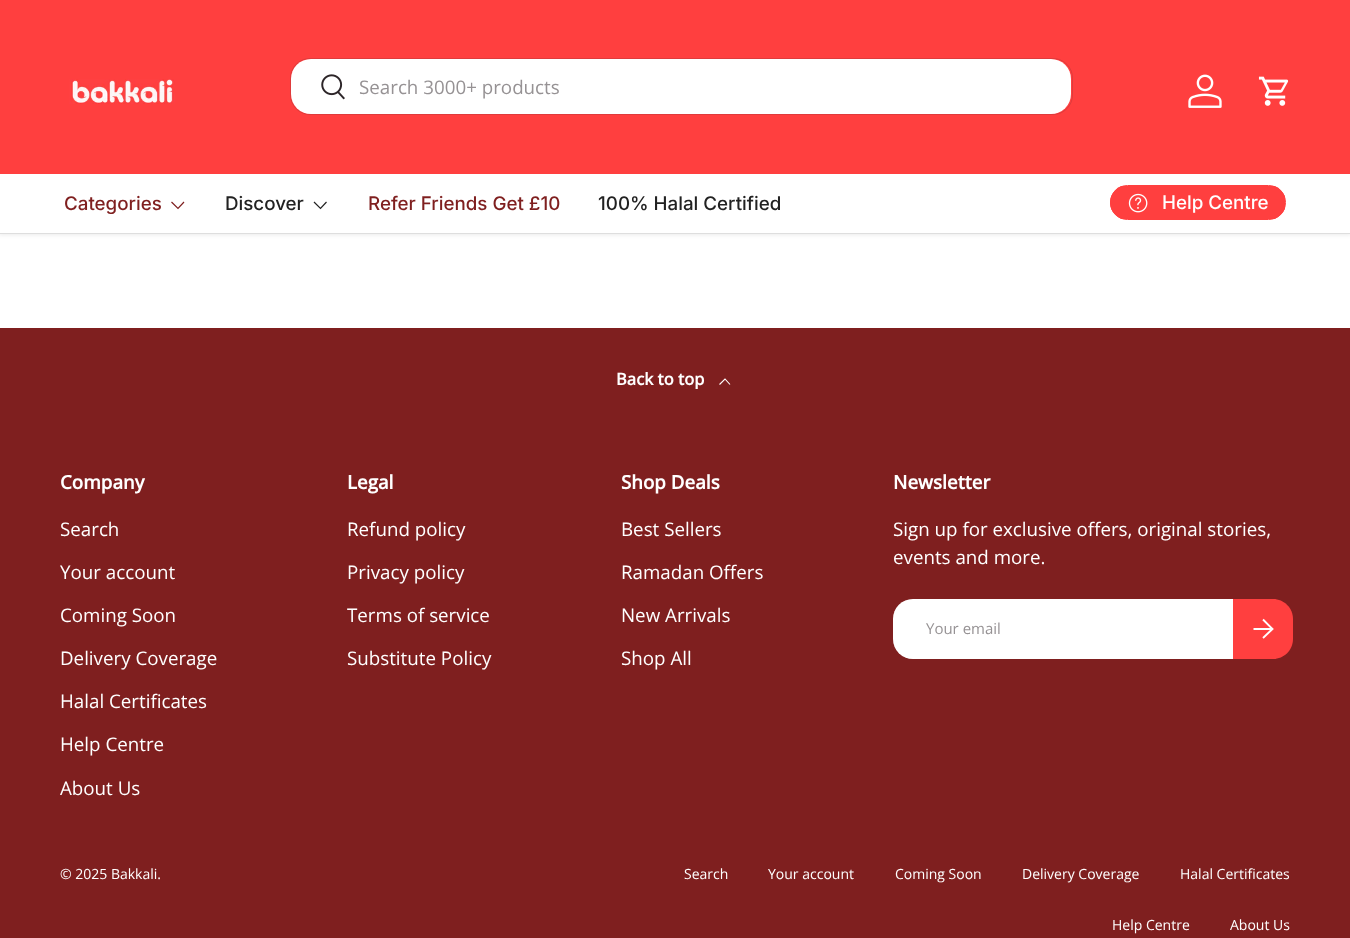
<svg xmlns="http://www.w3.org/2000/svg" width="1350" height="938">
	<defs>
		<clipPath id="clip1"><rect x="1110" y="185" width="176" height="35" rx="17.5" /></clipPath>
		<linearGradient id="g1" gradientUnits="userSpaceOnUse" x1="775" y1="140" x2="1274" y2="265"><stop offset="0.6" stop-color="#FF6B6B" /><stop offset="0.6" stop-color="#FF3F3F" /><stop offset="1" stop-color="#FF3F3F" /></linearGradient>
		<linearGradient id="g2" gradientUnits="userSpaceOnUse" x1="1111" y1="606" x2="1294" y2="652"><stop offset="0.6" stop-color="#FF6B6B" /><stop offset="0.6" stop-color="#FF3F3F" /><stop offset="1" stop-color="#FF3F3F" /></linearGradient>
	</defs>
	<rect width="100%" height="100%" fill="#FFFFFF" />
	<rect x="-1" y="-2" width="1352" height="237" fill="#000000" fill-opacity="0.08" filter="blur(2px)" />
	<rect x="0" y="0" width="1350" height="174" fill="#FF3F3F" />
	<image x="69" y="79" width="106" height="25" href="assets/img1.png" />
	<rect x="290.5" y="58.5" width="782" height="56" rx="19.5" fill="none" stroke="#DF3B3C" />
	<rect x="291" y="59" width="780" height="55" rx="20" fill="#FFFFFF" />
	<image x="321" y="74" width="24" height="26" href="assets/img2.png" />
	<text x="359" y="94" font-family="Open Sans" font-size="18.75" fill="#969294">Search 3000+ products</text>
	<image x="1188" y="74" width="34" height="34" href="assets/img3.png" />
	<image x="1258" y="76" width="31" height="30" href="assets/img4.png" />
	<rect x="0" y="174" width="1350" height="59" fill="#FFFFFF" />
	<text x="64" y="210" font-family="Inter" font-size="18.75" font-weight="500" fill="#7F1F1F">Categories</text>
	<path d="M184 202L178 208.5L171.5 202" fill="none" stroke="#7F1F1F" stroke-width="1.2" />
	<text x="225" y="210" font-family="Inter" font-size="18.75" font-weight="500" fill="#222222">Discover</text>
	<path d="M326.5 202L320.5 208.5L314 202" fill="none" stroke="#222222" stroke-width="1.2" />
	<text x="368" y="210" font-family="Inter" font-size="18.75" font-weight="500" fill="#7F1F1F">Refer Friends Get £10</text>
	<text x="598" y="210" font-family="Inter" font-size="18.75" font-weight="500" fill="#222222">100% Halal Certified</text>
	<g clip-path="url(#clip1)">
		<rect x="1110" y="186" width="175" height="33" fill="url(#g1)" />
	</g>
	<rect x="1110.5" y="185.5" width="175" height="34" rx="17" fill="none" stroke="#FF3F3F" />
	<image x="1128" y="193" width="20" height="20" href="assets/img5.png" />
	<text x="1162" y="209" font-family="Inter" font-size="18.75" font-weight="500" fill="#FFFFFF">Help Centre</text>
	<rect x="0" y="233" width="1350" height="1" fill="#DEDEDE" />
	<rect x="0" y="328" width="1350" height="610" fill="#7F1F1F" />
	<text x="616" y="385" font-family="Open Sans" font-size="16.5" font-weight="700" fill="#FFFFFF">Back to top</text>
	<path d="M719.5 384.5L725 379L730 384.5" fill="none" stroke="#FFFFFF" stroke-width="1.1" />
	<text x="60" y="489" font-family="Open Sans" font-size="18.75" font-weight="700" fill="#FFFFFF">Company</text>
	<g font-family="Open Sans" font-size="18.75" fill="#FFFFFF">
		<text x="60" y="536">Search</text>
		<text x="60" y="579">Your account</text>
		<text x="60" y="622">Coming Soon</text>
		<text x="60" y="665">Delivery Coverage</text>
		<text x="60" y="708">Halal Certificates</text>
		<text x="60" y="751">Help Centre</text>
		<text x="60" y="795">About Us</text>
	</g>
	<text x="347" y="489" font-family="Open Sans" font-size="18.75" font-weight="700" fill="#FFFFFF">Legal</text>
	<g font-family="Open Sans" font-size="18.75" fill="#FFFFFF">
		<text x="347" y="536">Refund policy</text>
		<text x="347" y="579">Privacy policy</text>
		<text x="347" y="622">Terms of service</text>
		<text x="347" y="665">Substitute Policy</text>
	</g>
	<text x="621" y="489" font-family="Open Sans" font-size="18.75" font-weight="700" fill="#FFFFFF">Shop Deals</text>
	<g font-family="Open Sans" font-size="18.75" fill="#FFFFFF">
		<text x="621" y="536">Best Sellers</text>
		<text x="621" y="579">Ramadan Offers</text>
		<text x="621" y="622">New Arrivals</text>
		<text x="621" y="665">Shop All</text>
	</g>
	<text x="893" y="489" font-family="Open Sans" font-size="18.75" font-weight="700" fill="#FFFFFF">Newsletter</text>
	<g font-family="Open Sans" font-size="18.75" fill="#FFFFFF">
		<text x="893" y="536">Sign up for exclusive offers, original stories,</text>
		<text x="893" y="564">events and more.</text>
	</g>
	<rect x="893" y="599" width="397" height="60" rx="20" fill="#FFFFFF" />
	<rect x="893.5" y="599.5" width="396" height="59" rx="19.5" fill="none" stroke="#FFFFFF" stroke-opacity="0.2" />
	<text x="926" y="634" font-family="Open Sans" font-size="15" fill="#969294">Your email</text>
	<path d="M1233 599H1273C1284 599 1293 608 1293 619V639C1293 650 1284 659 1273 659H1233Z" fill="url(#g2)" />
	<path d="M1253.5 629H1271.5M1263 619.5L1272.5 629L1263 638" fill="none" stroke="#FFFFFF" stroke-width="1.9" />
	<g font-family="Open Sans" font-size="14" fill="#FFFFFF">
		<text x="60" y="879">© 2025 Bakkali.</text>
		<text x="684" y="879">Search</text>
		<text x="768" y="879">Your account</text>
		<text x="895" y="879">Coming Soon</text>
		<text x="1022" y="879">Delivery Coverage</text>
		<text x="1180" y="879">Halal Certificates</text>
		<text x="1112" y="930">Help Centre</text>
		<text x="1230" y="930">About Us</text>
	</g>
</svg>
